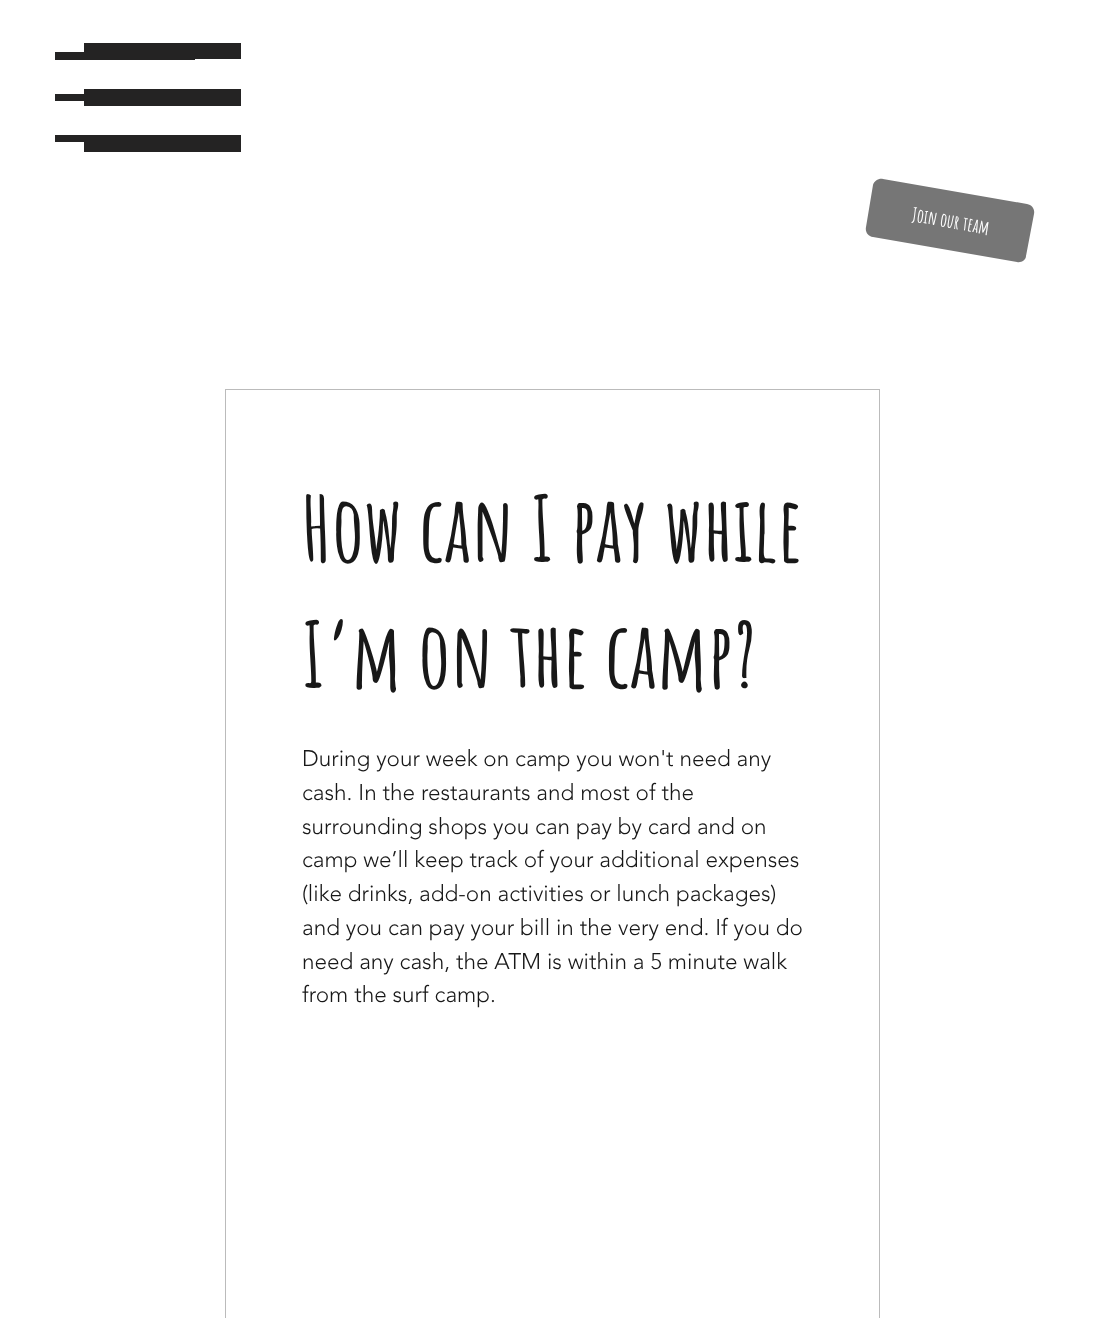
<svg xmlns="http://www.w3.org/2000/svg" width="1093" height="1318">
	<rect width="100%" height="100%" fill="#FFFFFF" />
	<rect x="55" y="52" width="140" height="8" fill="#242323" />
	<rect x="84" y="43" width="157" height="16" fill="#242323" />
	<rect x="84" y="89" width="157" height="17" fill="#242323" />
	<rect x="84" y="135" width="157" height="17" fill="#242323" />
	<rect x="55" y="94" width="29" height="7" fill="#242323" />
	<rect x="55" y="135" width="29" height="7" fill="#242323" />
	<path d="M883 179L1027 204C1032 205 1035 209 1034 214L1026 256C1026 260 1021 263 1017 262L873 237C868 236 865 232 866 227L873 185C874 181 879 178 883 179Z" fill="#767676" />
	<text x="911" y="221" transform="rotate(10 911 221)" font-family="Amatic SC" font-size="19" font-weight="700" fill="#FFFFFF">Join our team</text>
	<rect x="225.5" y="389.5" width="654" height="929" fill="none" stroke="#BBBBBB" />
	<g font-family="Amatic SC" font-size="90" font-weight="700" fill="#181818">
		<text x="302" y="562">How can I pay while</text>
		<text x="302" y="688">I’m on the camp?</text>
	</g>
	<g font-family="'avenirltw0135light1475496'" font-size="22.5" font-weight="300" fill="#181818">
		<text x="302" y="766">During your week on camp you won't need any</text>
		<text x="302" y="800">cash. In the restaurants and most of the</text>
		<text x="302" y="834">surrounding shops you can pay by card and on</text>
		<text x="302" y="867">camp we’ll keep track of your additional expenses</text>
		<text x="302" y="901">(like drinks, add-on activities or lunch packages)</text>
		<text x="302" y="935">and you can pay your bill in the very end. If you do</text>
		<text x="302" y="969">need any cash, the ATM is within a 5 minute walk</text>
		<text x="302" y="1002">from the surf camp.</text>
	</g>
</svg>
